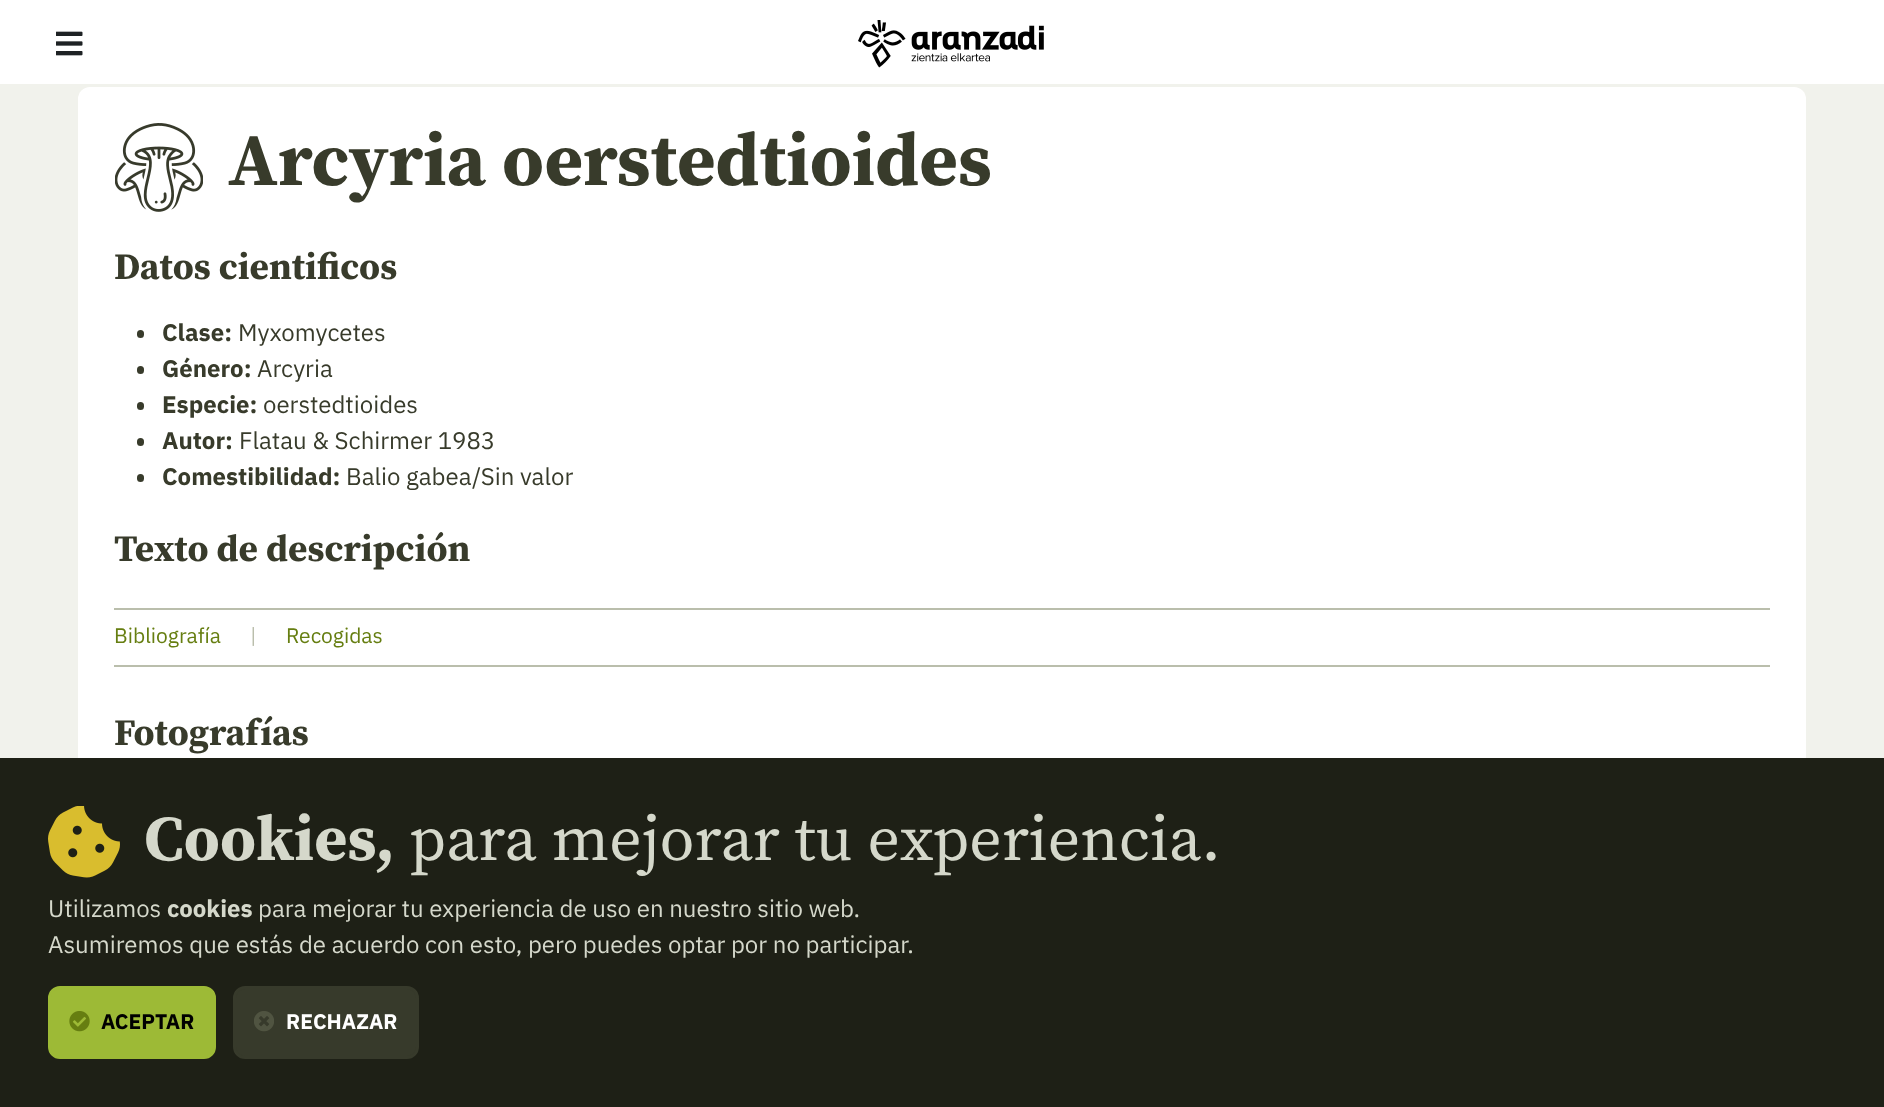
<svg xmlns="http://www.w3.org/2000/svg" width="1884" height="1107">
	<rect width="100%" height="100%" fill="#F1F2EC" />
	<rect x="0" y="0" width="1884" height="84" fill="#FFFFFF" />
	<image x="56" y="31" width="27" height="25" href="assets/img1.png" />
	<image x="858" y="20" width="186" height="48" href="assets/img2.png" />
	<rect x="78" y="87" width="1728" height="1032" rx="12" fill="#FFFFFF" />
	<image x="115" y="123" width="88" height="89" href="assets/img3.png" />
	<text x="228" y="185" font-family="Source Serif Pro" font-size="74.25" font-weight="700" fill="#383B2B">Arcyria oerstedtioides</text>
	<text x="114" y="279" font-family="Source Serif Pro" font-size="37.25" font-weight="700" fill="#383B2B">Datos cientificos</text>
	<rect x="137" y="330" width="7" height="8" rx="3.5" fill="#383B2B" />
	<text x="162" y="341" font-family="IBM Plex Sans" font-size="24" font-weight="700" fill="#383B2B">Clase:</text>
	<text x="238" y="341" font-family="IBM Plex Sans" font-size="24" fill="#383B2B">Myxomycetes</text>
	<rect x="137" y="366" width="7" height="8" rx="3.5" fill="#383B2B" />
	<text x="162" y="377" font-family="IBM Plex Sans" font-size="24" font-weight="700" fill="#383B2B">Género:</text>
	<text x="257" y="377" font-family="IBM Plex Sans" font-size="24" fill="#383B2B">Arcyria</text>
	<rect x="137" y="402" width="7" height="8" rx="3.5" fill="#383B2B" />
	<text x="162" y="413" font-family="IBM Plex Sans" font-size="24" font-weight="700" fill="#383B2B">Especie:</text>
	<text x="263" y="413" font-family="IBM Plex Sans" font-size="24" fill="#383B2B">oerstedtioides</text>
	<rect x="137" y="438" width="7" height="8" rx="3.5" fill="#383B2B" />
	<text x="162" y="449" font-family="IBM Plex Sans" font-size="24" font-weight="700" fill="#383B2B">Autor:</text>
	<text x="239" y="449" font-family="IBM Plex Sans" font-size="24" fill="#383B2B">Flatau &amp; Schirmer 1983</text>
	<rect x="137" y="474" width="7" height="8" rx="3.5" fill="#383B2B" />
	<text x="162" y="485" font-family="IBM Plex Sans" font-size="24" font-weight="700" fill="#383B2B">Comestibilidad:</text>
	<text x="346" y="485" font-family="IBM Plex Sans" font-size="24" fill="#383B2B">Balio gabea/Sin valor</text>
	<text x="114" y="561" font-family="Source Serif Pro" font-size="37.25" font-weight="700" fill="#383B2B">Texto de descripción</text>
	<rect x="114" y="608" width="1656" height="2" fill="#BABEAC" />
	<rect x="114" y="665" width="1656" height="2" fill="#BABEAC" />
	<text x="114" y="643" font-family="IBM Plex Sans" font-size="21" fill="#667E11">Bibliografía</text>
	<text x="250" y="643" font-family="IBM Plex Sans" font-size="21" fill="#BABEAC">|</text>
	<text x="286" y="643" font-family="IBM Plex Sans" font-size="21" fill="#667E11">Recogidas</text>
	<text x="114" y="745" font-family="Source Serif Pro" font-size="37.25" font-weight="700" fill="#383B2B">Fotografías</text>
	<rect x="0" y="758" width="1884" height="349" fill="#1E2016" />
	<image x="48" y="806" width="72" height="72" href="assets/img4.png" />
	<text x="144" y="860" font-family="Source Serif Pro" font-size="63.75" font-weight="700" fill="#D5D8CB">Cookies,</text>
	<text x="409" y="860" font-family="Source Serif Pro" font-size="63.75" fill="#D5D8CB">para mejorar tu experiencia.</text>
	<text x="48" y="917" font-family="IBM Plex Sans" font-size="24" fill="#D5D8CB">Utilizamos</text>
	<text x="167" y="917" font-family="IBM Plex Sans" font-size="24" font-weight="700" fill="#D5D8CB">cookies</text>
	<g font-family="IBM Plex Sans" font-size="24" fill="#D5D8CB">
		<text x="258" y="917">para mejorar tu experiencia de uso en nuestro sitio web.</text>
		<text x="48" y="953">Asumiremos que estás de acuerdo con esto, pero puedes optar por no participar.</text>
	</g>
	<rect x="49.5" y="987.5" width="165" height="70" rx="10.5" fill="#9DBA36" stroke="#9DBA36" stroke-width="3" />
	<image x="69" y="1011" width="21" height="21" href="assets/img5.png" />
	<text x="101" y="1029" font-family="IBM Plex Sans" font-size="21" font-weight="700" fill="#000000">ACEPTAR</text>
	<rect x="234.5" y="987.5" width="183" height="70" rx="10.5" fill="#373A2B" stroke="#373A2B" stroke-width="3" />
	<image x="254" y="1011" width="20" height="21" href="assets/img6.png" />
	<text x="286" y="1029" font-family="IBM Plex Sans" font-size="21" font-weight="700" fill="#FFFFFF">RECHAZAR</text>
</svg>
